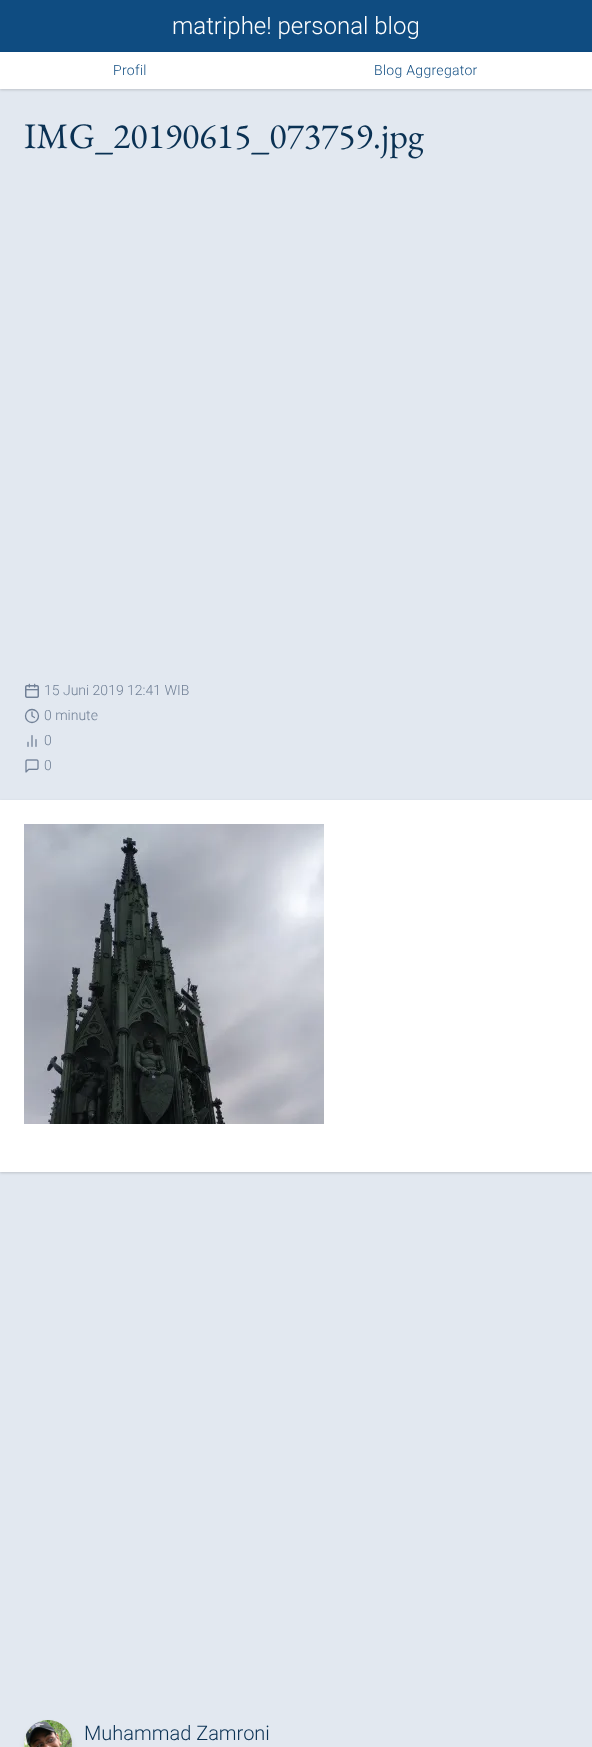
<svg xmlns="http://www.w3.org/2000/svg" width="592" height="1747">
	<rect width="100%" height="100%" fill="#E2E8F0" />
	<rect x="0" y="0" width="592" height="52" fill="#0F4C81" />
	<text x="172" y="34" font-family="Roboto" font-size="24" font-weight="300" fill="#FFFFFF">matriphe! personal blog</text>
	<rect x="0" y="53" width="592" height="37" fill="#000000" fill-opacity="0.06" filter="blur(1px)" />
	<rect x="0" y="53" width="592" height="37" fill="#000000" fill-opacity="0.1" filter="blur(1.5px)" />
	<rect x="0" y="52" width="592" height="37" fill="#FFFFFF" />
	<g font-family="Roboto" font-size="14" font-weight="300" letter-spacing="0.3" fill="#0F4C81">
		<text x="113" y="75">Profil</text>
		<text x="374" y="75">Blog Aggregator</text>
	</g>
	<text x="24" y="148" font-family="EB Garamond" font-size="36" fill="#0A3153">IMG_20190615_073759.jpg</text>
	<image x="25" y="683" width="14" height="15" href="assets/img1.png" />
	<text x="44" y="695" font-family="Roboto" font-size="14" font-weight="300" fill="#718096">15 Juni 2019 12:41 WIB</text>
	<circle cx="32" cy="716" r="6.5" fill="none" stroke="#718096" stroke-width="1.3" />
	<path d="M32 712V716L34.5 717.5" fill="none" stroke="#718096" stroke-width="1.3" stroke-linecap="round" stroke-linejoin="round" />
	<text x="44" y="720" font-family="Roboto" font-size="14" font-weight="300" fill="#718096">0 minute</text>
	<image x="27" y="735" width="10" height="12" href="assets/img2.png" />
	<text x="44" y="745" font-family="Roboto" font-size="14" font-weight="300" fill="#718096">0</text>
	<image x="25" y="759" width="14" height="14" href="assets/img3.png" />
	<text x="44" y="770" font-family="Roboto" font-size="14" font-weight="300" fill="#718096">0</text>
	<rect x="0" y="801" width="592" height="372" fill="#000000" fill-opacity="0.06" filter="blur(1px)" />
	<rect x="0" y="801" width="592" height="372" fill="#000000" fill-opacity="0.1" filter="blur(1.5px)" />
	<rect x="0" y="800" width="592" height="372" fill="#FFFFFF" />
	<image x="24" y="824" width="300" height="300" href="assets/img4.png" />
	<rect x="25" y="1725" width="46" height="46" rx="23" fill="#000000" fill-opacity="0.1" filter="blur(3px)" />
	<image x="24" y="1720" width="48" height="27" href="assets/img5.png" />
	<text x="84" y="1740" font-family="Roboto" font-size="20" font-weight="300" fill="#0A3153">Muhammad Zamroni</text>
</svg>
